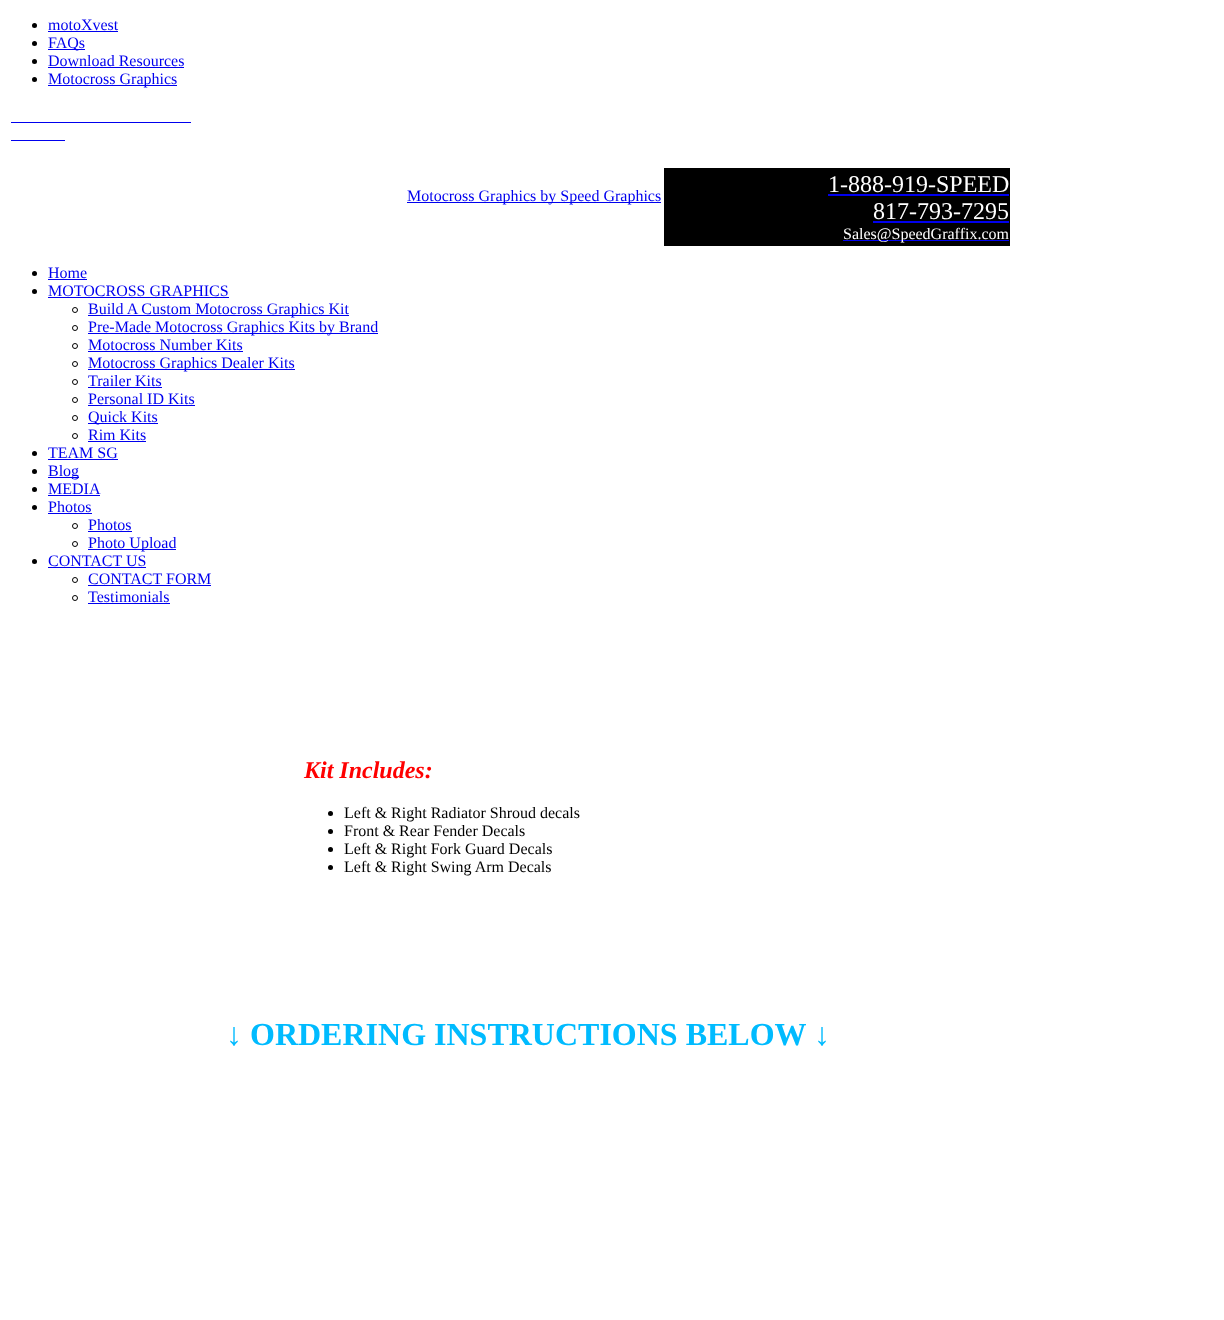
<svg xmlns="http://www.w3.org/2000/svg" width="1224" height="1320">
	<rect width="100%" height="100%" fill="#FFFFFF" />
	<circle cx="34.5" cy="25.5" r="2.5" fill="#000000" />
	<text x="48" y="30" font-family="Liberation Serif" font-size="16" fill="#0000EE">motoXvest</text>
	<rect x="48" y="31" width="70" height="1" fill="#0000EE" />
	<circle cx="34.5" cy="43.5" r="2.5" fill="#000000" />
	<rect x="48" y="49" width="37" height="1" fill="#0000EE" />
	<text x="48" y="48" font-family="Liberation Serif" font-size="16" fill="#0000EE">FAQs</text>
	<circle cx="34.5" cy="61.5" r="2.5" fill="#000000" />
	<text x="48" y="66" font-family="Liberation Serif" font-size="16" fill="#0000EE">Download Resources</text>
	<rect x="48" y="67" width="136" height="1" fill="#0000EE" />
	<circle cx="34.5" cy="79.5" r="2.5" fill="#000000" />
	<rect x="48" y="85" width="129" height="1" fill="#0000EE" />
	<text x="48" y="84" font-family="Liberation Serif" font-size="16" fill="#0000EE">Motocross Graphics</text>
	<rect x="11" y="122" width="180" height="1" fill="#0000EE" />
	<rect x="11" y="140" width="54" height="1" fill="#0000EE" />
	<rect x="407" y="202" width="254" height="1" fill="#0000EE" />
	<text x="407" y="201" font-family="Liberation Serif" font-size="16" fill="#0000EE">Motocross Graphics by Speed Graphics</text>
	<rect x="664" y="168" width="346" height="78" fill="#000000" />
	<text x="828" y="192" font-family="Liberation Serif" font-size="24" fill="#FFFFFF">1-888-919-SPEED</text>
	<rect x="828" y="194" width="181" height="2" fill="#0000EE" />
	<text x="873" y="219" font-family="Liberation Serif" font-size="24" fill="#FFFFFF">817-793-7295</text>
	<rect x="873" y="221" width="136" height="2" fill="#0000EE" />
	<rect x="843" y="240" width="166" height="1" fill="#0000EE" />
	<text x="843" y="239" font-family="Liberation Serif" font-size="16" fill="#FFFFFF">Sales@SpeedGraffix.com</text>
	<circle cx="34.5" cy="273.5" r="2.5" fill="#000000" />
	<text x="48" y="278" font-family="Liberation Serif" font-size="16" fill="#0000EE">Home</text>
	<rect x="48" y="279" width="39" height="1" fill="#0000EE" />
	<circle cx="34.5" cy="291.5" r="2.5" fill="#000000" />
	<text x="48" y="296" font-family="Liberation Serif" font-size="16" fill="#0000EE">MOTOCROSS GRAPHICS</text>
	<rect x="48" y="297" width="181" height="1" fill="#0000EE" />
	<circle cx="75" cy="310" r="2.5" fill="none" stroke="#000000" />
	<rect x="88" y="315" width="261" height="1" fill="#0000EE" />
	<text x="88" y="314" font-family="Liberation Serif" font-size="16" fill="#0000EE">Build A Custom Motocross Graphics Kit</text>
	<circle cx="75" cy="328" r="2.5" fill="none" stroke="#000000" />
	<rect x="88" y="333" width="290" height="1" fill="#0000EE" />
	<text x="88" y="332" font-family="Liberation Serif" font-size="16" fill="#0000EE">Pre-Made Motocross Graphics Kits by Brand</text>
	<circle cx="75" cy="346" r="2.5" fill="none" stroke="#000000" />
	<text x="88" y="350" font-family="Liberation Serif" font-size="16" fill="#0000EE">Motocross Number Kits</text>
	<rect x="88" y="351" width="155" height="1" fill="#0000EE" />
	<circle cx="75" cy="364" r="2.5" fill="none" stroke="#000000" />
	<rect x="88" y="369" width="207" height="1" fill="#0000EE" />
	<text x="88" y="368" font-family="Liberation Serif" font-size="16" fill="#0000EE">Motocross Graphics Dealer Kits</text>
	<circle cx="75" cy="382" r="2.5" fill="none" stroke="#000000" />
	<text x="88" y="386" font-family="Liberation Serif" font-size="16" fill="#0000EE">Trailer Kits</text>
	<rect x="88" y="387" width="74" height="1" fill="#0000EE" />
	<circle cx="75" cy="400" r="2.5" fill="none" stroke="#000000" />
	<text x="88" y="404" font-family="Liberation Serif" font-size="16" fill="#0000EE">Personal ID Kits</text>
	<rect x="88" y="405" width="107" height="1" fill="#0000EE" />
	<circle cx="75" cy="418" r="2.5" fill="none" stroke="#000000" />
	<rect x="88" y="423" width="70" height="1" fill="#0000EE" />
	<text x="88" y="422" font-family="Liberation Serif" font-size="16" fill="#0000EE">Quick Kits</text>
	<circle cx="75" cy="436" r="2.5" fill="none" stroke="#000000" />
	<text x="88" y="440" font-family="Liberation Serif" font-size="16" fill="#0000EE">Rim Kits</text>
	<rect x="88" y="441" width="58" height="1" fill="#0000EE" />
	<circle cx="34.5" cy="453.5" r="2.5" fill="#000000" />
	<text x="48" y="458" font-family="Liberation Serif" font-size="16" fill="#0000EE">TEAM SG</text>
	<rect x="48" y="459" width="70" height="1" fill="#0000EE" />
	<circle cx="34.5" cy="471.5" r="2.5" fill="#000000" />
	<rect x="48" y="477" width="31" height="1" fill="#0000EE" />
	<text x="48" y="476" font-family="Liberation Serif" font-size="16" fill="#0000EE">Blog</text>
	<circle cx="34.5" cy="489.5" r="2.5" fill="#000000" />
	<text x="48" y="494" font-family="Liberation Serif" font-size="16" fill="#0000EE">MEDIA</text>
	<rect x="48" y="495" width="52" height="1" fill="#0000EE" />
	<circle cx="34.5" cy="507.5" r="2.5" fill="#000000" />
	<text x="48" y="512" font-family="Liberation Serif" font-size="16" fill="#0000EE">Photos</text>
	<rect x="48" y="513" width="44" height="1" fill="#0000EE" />
	<circle cx="75" cy="526" r="2.5" fill="none" stroke="#000000" />
	<text x="88" y="530" font-family="Liberation Serif" font-size="16" fill="#0000EE">Photos</text>
	<rect x="88" y="531" width="44" height="1" fill="#0000EE" />
	<circle cx="75" cy="544" r="2.5" fill="none" stroke="#000000" />
	<rect x="88" y="549" width="88" height="1" fill="#0000EE" />
	<text x="88" y="548" font-family="Liberation Serif" font-size="16" fill="#0000EE">Photo Upload</text>
	<circle cx="34.5" cy="561.5" r="2.5" fill="#000000" />
	<text x="48" y="566" font-family="Liberation Serif" font-size="16" fill="#0000EE">CONTACT US</text>
	<rect x="48" y="567" width="98" height="1" fill="#0000EE" />
	<circle cx="75" cy="580" r="2.5" fill="none" stroke="#000000" />
	<text x="88" y="584" font-family="Liberation Serif" font-size="16" fill="#0000EE">CONTACT FORM</text>
	<rect x="88" y="585" width="123" height="1" fill="#0000EE" />
	<circle cx="75" cy="598" r="2.5" fill="none" stroke="#000000" />
	<text x="88" y="602" font-family="Liberation Serif" font-size="16" fill="#0000EE">Testimonials</text>
	<rect x="88" y="603" width="82" height="1" fill="#0000EE" />
	<text x="304" y="778" font-family="Liberation Serif" font-size="24" font-weight="700" font-style="italic" fill="#FF0000">Kit Includes:</text>
	<circle cx="330.5" cy="813.5" r="2.5" fill="#000000" />
	<text x="344" y="818" font-family="Liberation Serif" font-size="16" fill="#000000">Left &amp; Right Radiator Shroud decals</text>
	<circle cx="330.5" cy="831.5" r="2.5" fill="#000000" />
	<text x="344" y="836" font-family="Liberation Serif" font-size="16" fill="#000000">Front &amp; Rear Fender Decals</text>
	<circle cx="330.5" cy="849.5" r="2.5" fill="#000000" />
	<text x="344" y="854" font-family="Liberation Serif" font-size="16" fill="#000000">Left &amp; Right Fork Guard Decals</text>
	<circle cx="330.5" cy="867.5" r="2.5" fill="#000000" />
	<text x="344" y="872" font-family="Liberation Serif" font-size="16" fill="#000000">Left &amp; Right Swing Arm Decals</text>
	<text x="226" y="1045" font-family="Liberation Serif" font-size="32" font-weight="700" fill="#00BBFF">↓ ORDERING INSTRUCTIONS BELOW ↓</text>
</svg>
